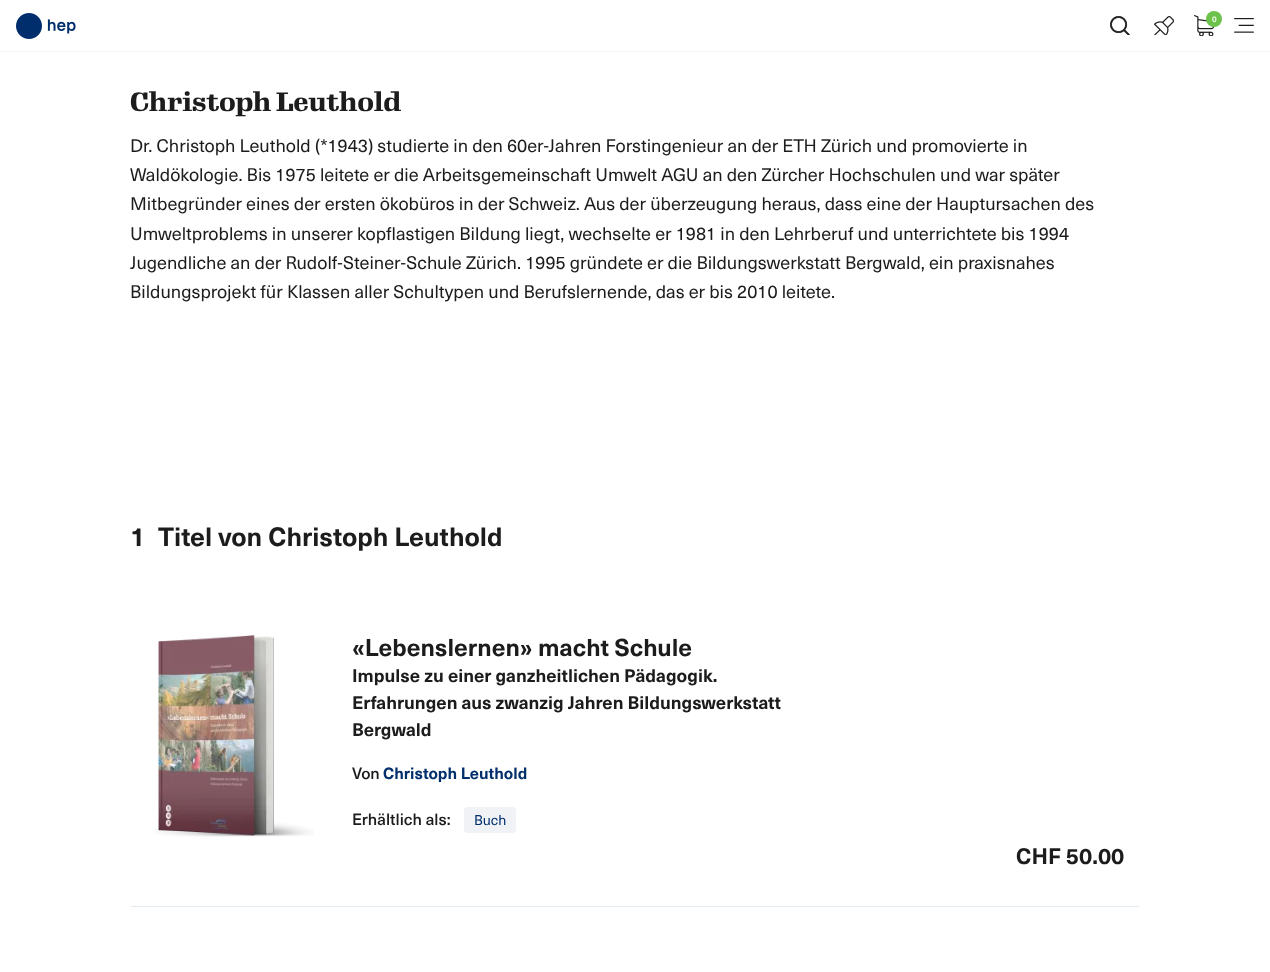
<svg xmlns="http://www.w3.org/2000/svg" width="1270" height="972">
	<rect width="100%" height="100%" fill="#FFFFFF" />
	<rect x="0" y="51" width="1270" height="1" fill="#F5F5F5" />
	<image x="16" y="13" width="60" height="26" href="assets/img1.png" />
	<image x="1110" y="16" width="20" height="19" href="assets/img2.png" />
	<image x="1154" y="16" width="20" height="19" href="assets/img3.png" />
	<image x="1194" y="15" width="20" height="21" href="assets/img4.png" />
	<circle cx="1214" cy="19" r="8" fill="#6CC24A" />
	<text x="1212" y="22" font-family="'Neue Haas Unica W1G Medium'" font-size="8" font-weight="500" fill="#FFFFFF">0</text>
	<image x="1234" y="18" width="20" height="15" href="assets/img5.png" />
	<text x="130" y="111" font-family="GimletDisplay" font-size="26" font-weight="700" fill="#1C1C1C">Christoph Leuthold</text>
	<g font-family="'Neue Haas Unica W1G'" font-size="18" fill="#1C1C1C">
		<text x="130" y="152">Dr. Christoph Leuthold (*1943) studierte in den 60er-Jahren Forstingenieur an der ETH Zürich und promovierte in</text>
		<text x="130" y="181">Waldökologie. Bis 1975 leitete er die Arbeitsgemeinschaft Umwelt AGU an den Zürcher Hochschulen und war später</text>
		<text x="130" y="210">Mitbegründer eines der ersten ökobüros in der Schweiz. Aus der überzeugung heraus, dass eine der Hauptursachen des</text>
		<text x="130" y="240">Umweltproblems in unserer kopflastigen Bildung liegt, wechselte er 1981 in den Lehrberuf und unterrichtete bis 1994</text>
		<text x="130" y="269">Jugendliche an der Rudolf-Steiner-Schule Zürich. 1995 gründete er die Bildungswerkstatt Bergwald, ein praxisnahes</text>
		<text x="130" y="298">Bildungsprojekt für Klassen aller Schultypen und Berufslernende, das er bis 2010 leitete.</text>
	</g>
	<g font-family="'Neue Haas Unica W1G'" font-size="26" font-weight="700" fill="#1C1C1C">
		<text x="130" y="546">1</text>
		<text x="158" y="546">Titel von Christoph Leuthold</text>
	</g>
	<rect x="131" y="906" width="1008" height="1" fill="#E4EBF0" />
	<image x="154" y="635" width="160" height="202" href="assets/img6.png" />
	<text x="352" y="656" font-family="'Neue Haas Unica W1G'" font-size="24" font-weight="700" fill="#1C1C1C">«Lebenslernen» macht Schule</text>
	<g font-family="'Neue Haas Unica W1G'" font-size="18" font-weight="700" fill="#1C1C1C">
		<text x="352" y="682">Impulse zu einer ganzheitlichen Pädagogik.</text>
		<text x="352" y="709">Erfahrungen aus zwanzig Jahren Bildungswerkstatt</text>
		<text x="352" y="736">Bergwald</text>
	</g>
	<text x="352" y="779" font-family="'Neue Haas Unica W1G Medium'" font-size="16" font-weight="500" fill="#1C1C1C">Von</text>
	<text x="383" y="779" font-family="'Neue Haas Unica W1G'" font-size="16" font-weight="700" fill="#002F6C">Christoph Leuthold</text>
	<text x="352" y="825" font-family="'Neue Haas Unica W1G Medium'" font-size="16" font-weight="500" fill="#1C1C1C">Erhältlich als:</text>
	<rect x="464" y="807" width="52" height="26" rx="4" fill="#F0F2F6" />
	<text x="474" y="825" font-family="'Neue Haas Unica W1G'" font-size="14" fill="#002F6C">Buch</text>
	<text x="1016" y="864" font-family="'Neue Haas Unica W1G'" font-size="22" font-weight="700" fill="#1C1C1C">CHF 50.00</text>
</svg>
